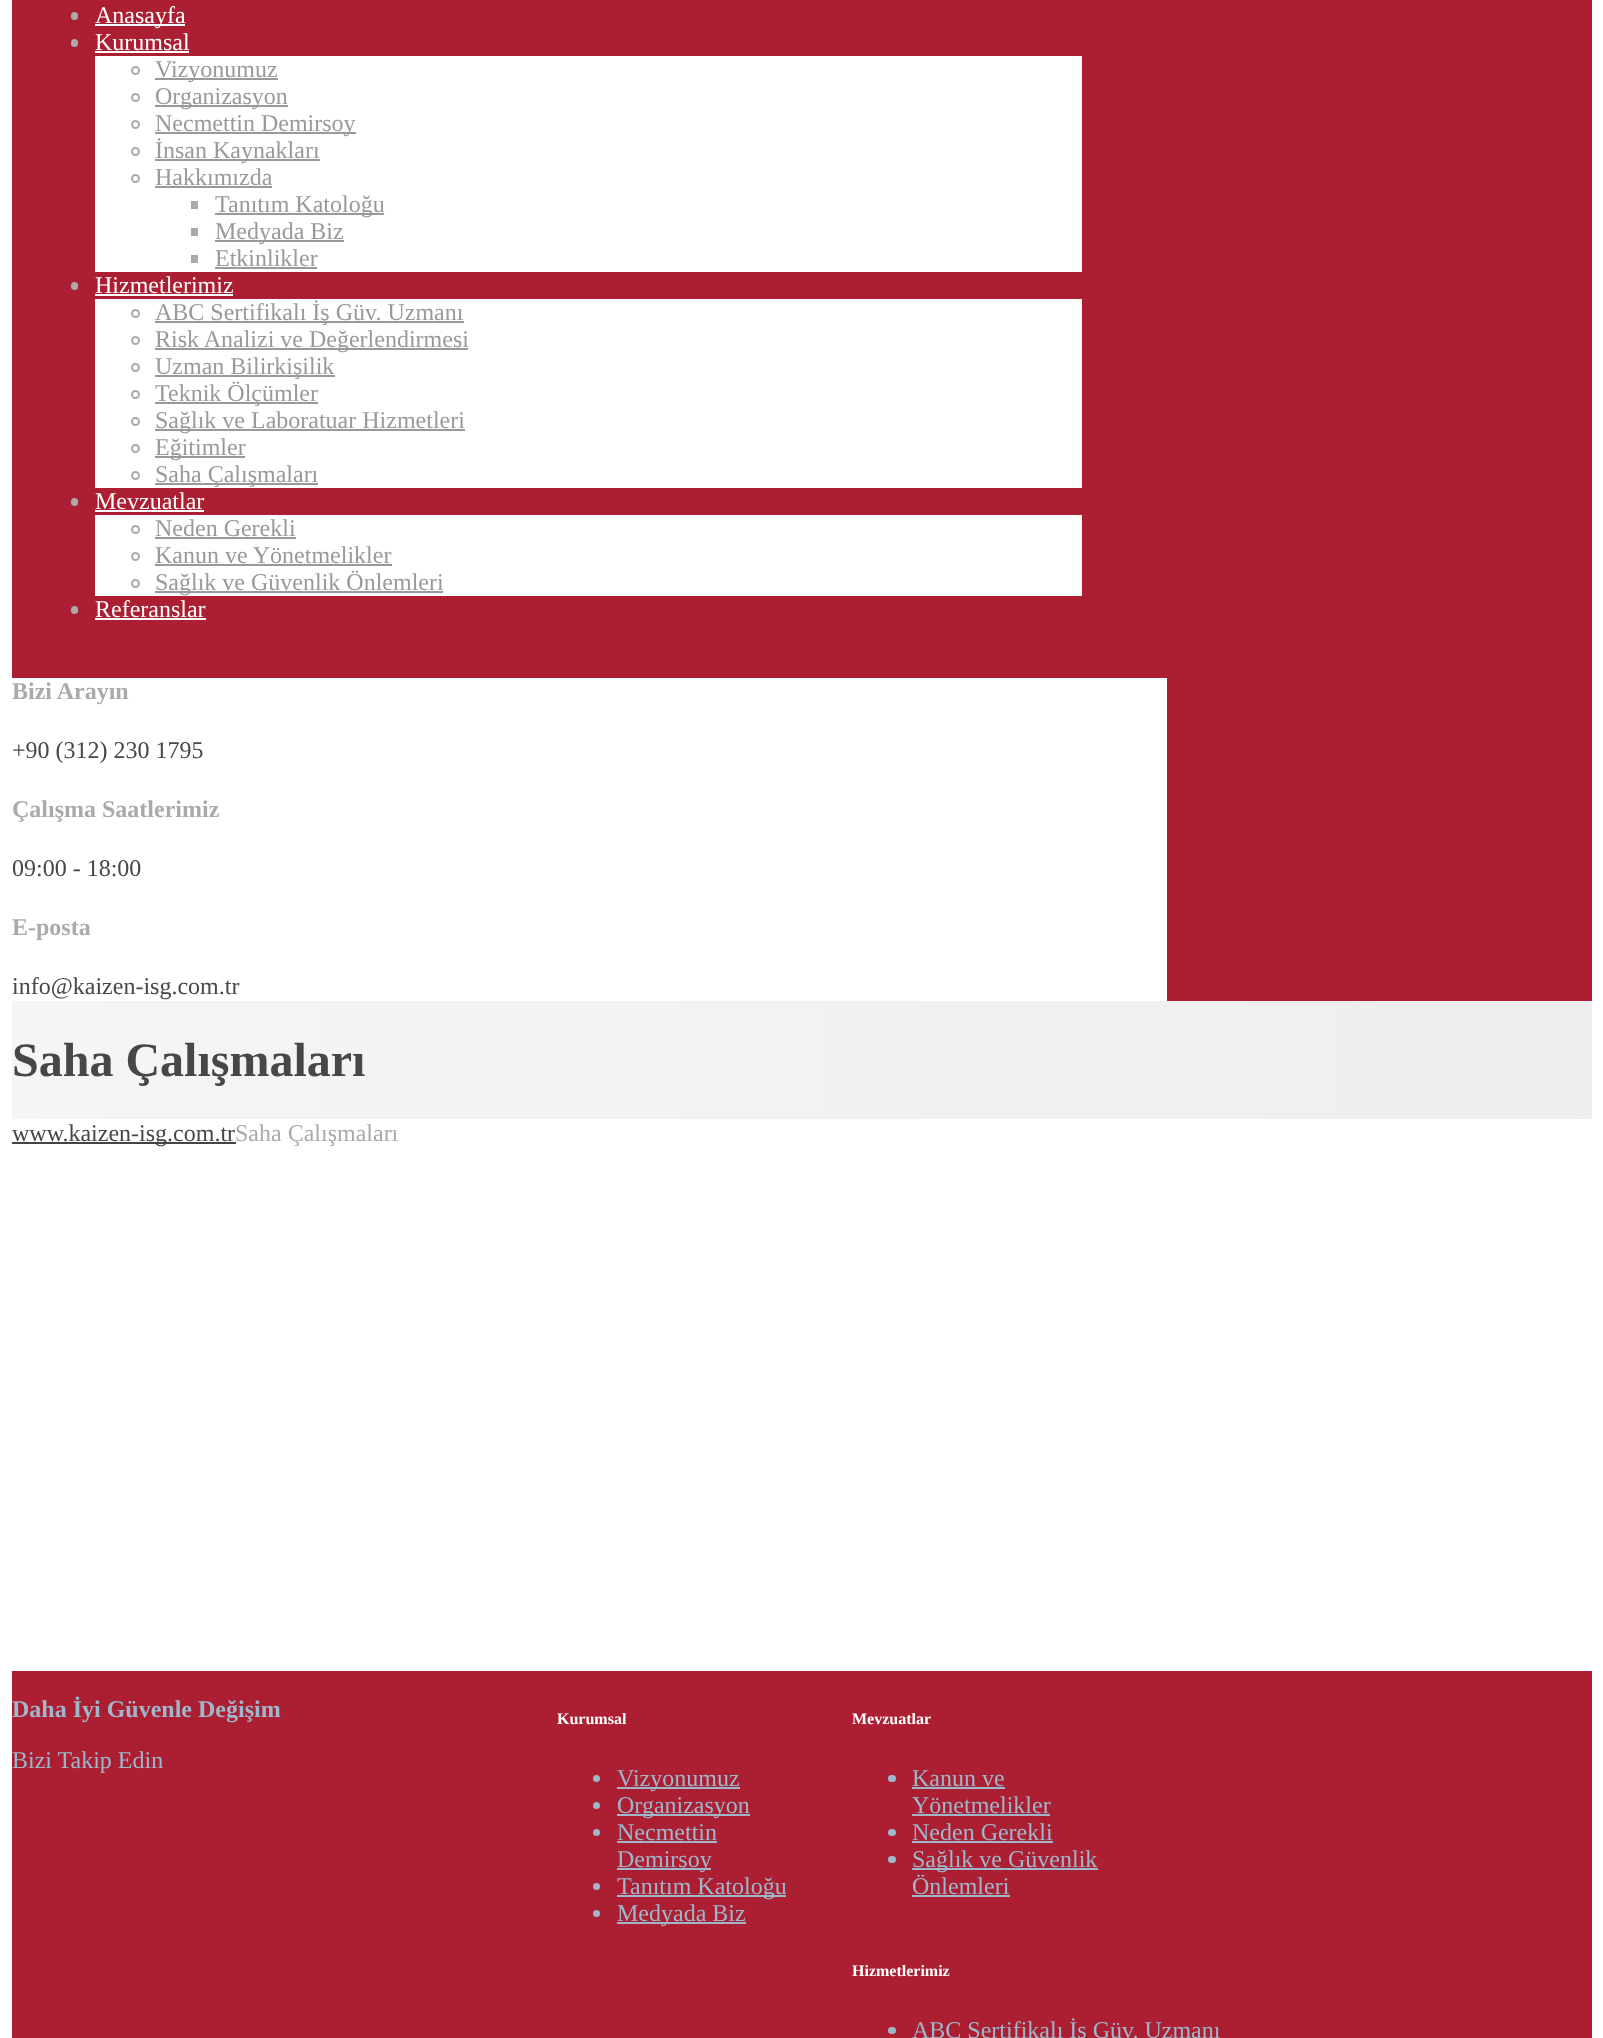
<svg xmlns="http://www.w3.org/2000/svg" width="1603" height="2038">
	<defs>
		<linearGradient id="g1" gradientUnits="userSpaceOnUse" x1="12" y1="1060" x2="1592" y2="1060"><stop offset="0" stop-color="#F5F5F5" /><stop offset="1" stop-color="#EEEEEE" /></linearGradient>
	</defs>
	<rect width="100%" height="100%" fill="#FFFFFF" />
	<rect x="12" y="0" width="1580" height="1001" fill="#AC1E31" />
	<rect x="71" y="12" width="7" height="8" rx="3.5" fill="#AAAAAA" />
	<rect x="95" y="24" width="90" height="2" fill="#FFFFFF" />
	<text x="95" y="23" font-family="Liberation Serif" font-size="24" fill="#FFFFFF">Anasayfa</text>
	<rect x="71" y="39" width="7" height="8" rx="3.5" fill="#AAAAAA" />
	<text x="95" y="50" font-family="Liberation Serif" font-size="24" fill="#FFFFFF">Kurumsal</text>
	<rect x="95" y="51" width="94" height="2" fill="#FFFFFF" />
	<rect x="95" y="56" width="987" height="216" fill="#FFFFFF" />
	<circle cx="135.5" cy="70.5" r="3.5" fill="none" stroke="#AAAAAA" stroke-width="2" />
	<rect x="155" y="78" width="123" height="2" fill="#999999" />
	<text x="155" y="77" font-family="Liberation Serif" font-size="24" fill="#999999">Vizyonumuz</text>
	<circle cx="135.5" cy="97.5" r="3.5" fill="none" stroke="#AAAAAA" stroke-width="2" />
	<rect x="155" y="105" width="133" height="2" fill="#999999" />
	<text x="155" y="104" font-family="Liberation Serif" font-size="24" fill="#999999">Organizasyon</text>
	<circle cx="135.5" cy="124.5" r="3.5" fill="none" stroke="#AAAAAA" stroke-width="2" />
	<rect x="155" y="132" width="201" height="2" fill="#999999" />
	<text x="155" y="131" font-family="Liberation Serif" font-size="24" fill="#999999">Necmettin Demirsoy</text>
	<circle cx="135.5" cy="151.5" r="3.5" fill="none" stroke="#AAAAAA" stroke-width="2" />
	<rect x="155" y="159" width="165" height="2" fill="#999999" />
	<text x="155" y="158" font-family="Liberation Serif" font-size="24" fill="#999999">İnsan Kaynakları</text>
	<circle cx="135.5" cy="178.5" r="3.5" fill="none" stroke="#AAAAAA" stroke-width="2" />
	<text x="155" y="185" font-family="Liberation Serif" font-size="24" fill="#999999">Hakkımızda</text>
	<rect x="155" y="186" width="117" height="2" fill="#999999" />
	<rect x="191" y="201" width="7" height="8" fill="#AAAAAA" />
	<rect x="215" y="213" width="169" height="2" fill="#999999" />
	<text x="215" y="212" font-family="Liberation Serif" font-size="24" fill="#999999">Tanıtım Katoloğu</text>
	<rect x="191" y="228" width="7" height="8" fill="#AAAAAA" />
	<rect x="215" y="240" width="129" height="2" fill="#999999" />
	<text x="215" y="239" font-family="Liberation Serif" font-size="24" fill="#999999">Medyada Biz</text>
	<rect x="191" y="255" width="7" height="8" fill="#AAAAAA" />
	<text x="215" y="266" font-family="Liberation Serif" font-size="24" fill="#999999">Etkinlikler</text>
	<rect x="215" y="267" width="102" height="2" fill="#999999" />
	<rect x="71" y="282" width="7" height="8" rx="3.5" fill="#AAAAAA" />
	<text x="95" y="293" font-family="Liberation Serif" font-size="24" fill="#FFFFFF">Hizmetlerimiz</text>
	<rect x="95" y="294" width="138" height="2" fill="#FFFFFF" />
	<rect x="95" y="299" width="987" height="189" fill="#FFFFFF" />
	<circle cx="135.5" cy="313.5" r="3.5" fill="none" stroke="#AAAAAA" stroke-width="2" />
	<rect x="155" y="321" width="309" height="2" fill="#999999" />
	<text x="155" y="320" font-family="Liberation Serif" font-size="24" fill="#999999">ABC Sertifikalı İş Güv. Uzmanı</text>
	<circle cx="135.5" cy="340.5" r="3.5" fill="none" stroke="#AAAAAA" stroke-width="2" />
	<rect x="155" y="348" width="313" height="2" fill="#999999" />
	<text x="155" y="347" font-family="Liberation Serif" font-size="24" fill="#999999">Risk Analizi ve Değerlendirmesi</text>
	<circle cx="135.5" cy="367.5" r="3.5" fill="none" stroke="#AAAAAA" stroke-width="2" />
	<rect x="155" y="375" width="180" height="2" fill="#999999" />
	<text x="155" y="374" font-family="Liberation Serif" font-size="24" fill="#999999">Uzman Bilirkişilik</text>
	<circle cx="135.5" cy="394.5" r="3.5" fill="none" stroke="#AAAAAA" stroke-width="2" />
	<rect x="155" y="402" width="163" height="2" fill="#999999" />
	<text x="155" y="401" font-family="Liberation Serif" font-size="24" fill="#999999">Teknik Ölçümler</text>
	<circle cx="135.5" cy="421.5" r="3.5" fill="none" stroke="#AAAAAA" stroke-width="2" />
	<rect x="155" y="429" width="310" height="2" fill="#999999" />
	<text x="155" y="428" font-family="Liberation Serif" font-size="24" fill="#999999">Sağlık ve Laboratuar Hizmetleri</text>
	<circle cx="135.5" cy="448.5" r="3.5" fill="none" stroke="#AAAAAA" stroke-width="2" />
	<rect x="155" y="456" width="90" height="2" fill="#999999" />
	<text x="155" y="455" font-family="Liberation Serif" font-size="24" fill="#999999">Eğitimler</text>
	<circle cx="135.5" cy="475.5" r="3.5" fill="none" stroke="#AAAAAA" stroke-width="2" />
	<rect x="155" y="483" width="163" height="2" fill="#999999" />
	<text x="155" y="482" font-family="Liberation Serif" font-size="24" fill="#999999">Saha Çalışmaları</text>
	<rect x="71" y="498" width="7" height="8" rx="3.5" fill="#AAAAAA" />
	<text x="95" y="509" font-family="Liberation Serif" font-size="24" fill="#FFFFFF">Mevzuatlar</text>
	<rect x="95" y="510" width="109" height="2" fill="#FFFFFF" />
	<rect x="95" y="515" width="987" height="81" fill="#FFFFFF" />
	<circle cx="135.5" cy="529.5" r="3.5" fill="none" stroke="#AAAAAA" stroke-width="2" />
	<text x="155" y="536" font-family="Liberation Serif" font-size="24" fill="#999999">Neden Gerekli</text>
	<rect x="155" y="537" width="141" height="2" fill="#999999" />
	<circle cx="135.5" cy="556.5" r="3.5" fill="none" stroke="#AAAAAA" stroke-width="2" />
	<text x="155" y="563" font-family="Liberation Serif" font-size="24" fill="#999999">Kanun ve Yönetmelikler</text>
	<rect x="155" y="564" width="237" height="2" fill="#999999" />
	<circle cx="135.5" cy="583.5" r="3.5" fill="none" stroke="#AAAAAA" stroke-width="2" />
	<rect x="155" y="591" width="288" height="2" fill="#999999" />
	<text x="155" y="590" font-family="Liberation Serif" font-size="24" fill="#999999">Sağlık ve Güvenlik Önlemleri</text>
	<rect x="71" y="606" width="7" height="8" rx="3.5" fill="#AAAAAA" />
	<text x="95" y="617" font-family="Liberation Serif" font-size="24" fill="#FFFFFF">Referanslar</text>
	<rect x="95" y="618" width="111" height="2" fill="#FFFFFF" />
	<rect x="12" y="678" width="1155" height="323" fill="#FFFFFF" />
	<text x="12" y="699" font-family="Liberation Serif" font-size="24" font-weight="700" fill="#AAAAAA">Bizi Arayın</text>
	<text x="12" y="758" font-family="Liberation Serif" font-size="24" fill="#474747">+90 (312) 230 1795</text>
	<text x="12" y="817" font-family="Liberation Serif" font-size="24" font-weight="700" fill="#AAAAAA">Çalışma Saatlerimiz</text>
	<text x="12" y="876" font-family="Liberation Serif" font-size="24" fill="#474747">09:00 - 18:00</text>
	<text x="12" y="935" font-family="Liberation Serif" font-size="24" font-weight="700" fill="#AAAAAA">E-posta</text>
	<text x="12" y="994" font-family="Liberation Serif" font-size="24" fill="#474747">info@kaizen-isg.com.tr</text>
	<rect x="12" y="1001" width="1580" height="118" fill="url(#g1)" />
	<text x="12" y="1076" font-family="Liberation Serif" font-size="48" font-weight="700" fill="#474747">Saha Çalışmaları</text>
	<rect x="12" y="1142" width="224" height="2" fill="#444444" />
	<text x="12" y="1141" font-family="Liberation Serif" font-size="24" fill="#474747">www.kaizen-isg.com.tr</text>
	<text x="235" y="1141" font-family="Liberation Serif" font-size="24" fill="#AAAAAA">Saha Çalışmaları</text>
	<rect x="12" y="1671" width="1580" height="367" fill="#AC1E31" />
	<text x="12" y="1717" font-family="Liberation Serif" font-size="24" font-weight="700" fill="#9EB7CB">Daha İyi Güvenle Değişim</text>
	<text x="12" y="1768" font-family="Liberation Serif" font-size="24" fill="#9EB7CB">Bizi Takip Edin</text>
	<text x="557" y="1724" font-family="Liberation Serif" font-size="16" font-weight="700" fill="#FFFFFF">Kurumsal</text>
	<circle cx="596.5" cy="1778.5" r="3.5" fill="#9EB7CB" />
	<rect x="617" y="1787" width="123" height="2" fill="#9EB7CB" />
	<text x="617" y="1786" font-family="Liberation Serif" font-size="24" fill="#9EB7CB">Vizyonumuz</text>
	<circle cx="596.5" cy="1805.5" r="3.5" fill="#9EB7CB" />
	<rect x="617" y="1814" width="133" height="2" fill="#9EB7CB" />
	<text x="617" y="1813" font-family="Liberation Serif" font-size="24" fill="#9EB7CB">Organizasyon</text>
	<circle cx="596.5" cy="1832.5" r="3.5" fill="#9EB7CB" />
	<text x="617" y="1840" font-family="Liberation Serif" font-size="24" fill="#9EB7CB">Necmettin</text>
	<rect x="617" y="1841" width="100" height="2" fill="#9EB7CB" />
	<rect x="617" y="1868" width="94" height="2" fill="#9EB7CB" />
	<text x="617" y="1867" font-family="Liberation Serif" font-size="24" fill="#9EB7CB">Demirsoy</text>
	<circle cx="596.5" cy="1886.5" r="3.5" fill="#9EB7CB" />
	<rect x="617" y="1895" width="169" height="2" fill="#9EB7CB" />
	<text x="617" y="1894" font-family="Liberation Serif" font-size="24" fill="#9EB7CB">Tanıtım Katoloğu</text>
	<circle cx="596.5" cy="1913.5" r="3.5" fill="#9EB7CB" />
	<rect x="617" y="1922" width="129" height="2" fill="#9EB7CB" />
	<text x="617" y="1921" font-family="Liberation Serif" font-size="24" fill="#9EB7CB">Medyada Biz</text>
	<text x="852" y="1724" font-family="Liberation Serif" font-size="16" font-weight="700" fill="#FFFFFF">Mevzuatlar</text>
	<rect x="888" y="1775" width="8" height="7" rx="3.5" fill="#9EB7CB" />
	<text x="912" y="1786" font-family="Liberation Serif" font-size="24" fill="#9EB7CB">Kanun ve</text>
	<rect x="912" y="1787" width="93" height="2" fill="#9EB7CB" />
	<text x="912" y="1813" font-family="Liberation Serif" font-size="24" fill="#9EB7CB">Yönetmelikler</text>
	<rect x="912" y="1814" width="138" height="2" fill="#9EB7CB" />
	<rect x="888" y="1829" width="8" height="7" rx="3.5" fill="#9EB7CB" />
	<text x="912" y="1840" font-family="Liberation Serif" font-size="24" fill="#9EB7CB">Neden Gerekli</text>
	<rect x="912" y="1841" width="141" height="2" fill="#9EB7CB" />
	<rect x="888" y="1856" width="8" height="7" rx="3.5" fill="#9EB7CB" />
	<rect x="912" y="1868" width="186" height="2" fill="#9EB7CB" />
	<g font-family="Liberation Serif" font-size="24" fill="#9EB7CB">
		<text x="912" y="1867">Sağlık ve Güvenlik</text>
		<text x="912" y="1894">Önlemleri</text>
	</g>
	<rect x="912" y="1895" width="98" height="2" fill="#9EB7CB" />
	<text x="852" y="1976" font-family="Liberation Serif" font-size="16" font-weight="700" fill="#FFFFFF">Hizmetlerimiz</text>
	<rect x="888" y="2027" width="8" height="7" rx="3.5" fill="#9EB7CB" />
	<text x="912" y="2038" font-family="Liberation Serif" font-size="24" fill="#9EB7CB">ABC Sertifikalı İş Güv. Uzmanı</text>
</svg>
